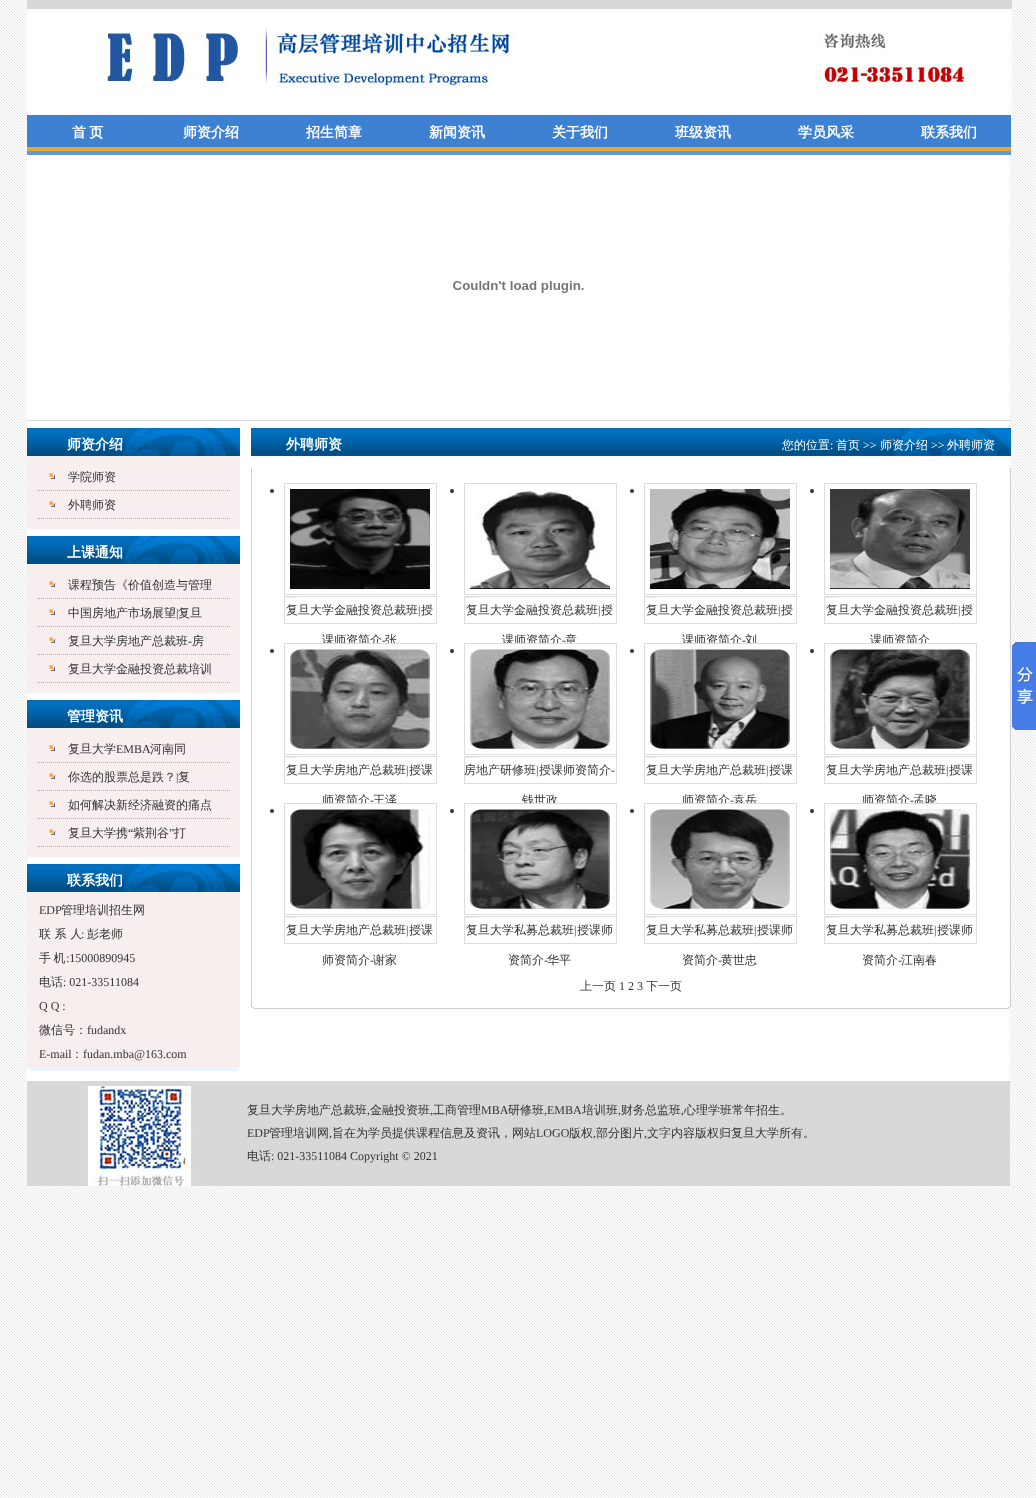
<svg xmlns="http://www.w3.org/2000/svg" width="1036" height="1498">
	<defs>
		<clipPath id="clip1"><rect x="39" y="898" width="195" height="168" /></clipPath>
	</defs>
	<rect width="100%" height="100%" fill="#FFFFFF" />
	<image x="0" y="0" width="1036" height="1498" href="assets/img1.png" />
	<rect x="27" y="155" width="983" height="926" fill="#FFFFFF" />
	<image x="27" y="0" width="985" height="115" href="assets/img2.png" />
	<rect x="27" y="151" width="984" height="4" fill="#5F98DC" />
	<rect x="27" y="115" width="984" height="32" fill="#3E81D2" />
	<rect x="27" y="147" width="984" height="4" fill="#ECA62D" />
	<g font-family="WenQuanYi Zen Hei" font-size="14" font-weight="700" fill="#FFFFFF">
		<text x="72" y="137" word-spacing="-1">首 页</text>
		<text x="183" y="137">师资介绍</text>
		<text x="306" y="137">招生简章</text>
		<text x="429" y="137">新闻资讯</text>
		<text x="552" y="137">关于我们</text>
		<text x="675" y="137">班级资讯</text>
		<text x="798" y="137">学员风采</text>
		<text x="921" y="137">联系我们</text>
	</g>
	<image x="453" y="281" width="131" height="12" href="assets/img3.png" />
	<rect x="27" y="420" width="984" height="1" fill="#DBDBDB" />
	<image x="27" y="428" width="213" height="28" href="assets/img4.png" />
	<text x="67" y="449" font-family="WenQuanYi Zen Hei" font-size="14" font-weight="700" fill="#FFFFFF">师资介绍</text>
	<rect x="27" y="456" width="213" height="73" fill="#F7EEEE" />
	<image x="37" y="473" width="193" height="18" href="assets/img5.png" />
	<text x="68" y="481" font-family="WenQuanYi Zen Hei" font-size="12" font-weight="500" fill="#333333">学院师资</text>
	<image x="37" y="501" width="193" height="18" href="assets/img5.png" />
	<text x="68" y="509" font-family="WenQuanYi Zen Hei" font-size="12" font-weight="500" fill="#333333">外聘师资</text>
	<image x="27" y="536" width="213" height="28" href="assets/img4.png" />
	<text x="67" y="557" font-family="WenQuanYi Zen Hei" font-size="14" font-weight="700" fill="#FFFFFF">上课通知</text>
	<rect x="27" y="564" width="213" height="129" fill="#F7EEEE" />
	<image x="37" y="581" width="193" height="18" href="assets/img5.png" />
	<text x="68" y="589" font-family="WenQuanYi Zen Hei" font-size="12" font-weight="500" fill="#333333">课程预告《价值创造与管理</text>
	<image x="37" y="609" width="193" height="18" href="assets/img5.png" />
	<text x="68" y="617" font-family="WenQuanYi Zen Hei" font-size="12" font-weight="500" fill="#333333">中国房地产市场展望</text>
	<text x="176" y="617" font-family="Liberation Serif" font-size="12" fill="#333333">|</text>
	<text x="178" y="617" font-family="WenQuanYi Zen Hei" font-size="12" font-weight="500" fill="#333333">复旦</text>
	<image x="37" y="637" width="193" height="18" href="assets/img5.png" />
	<text x="68" y="645" font-family="WenQuanYi Zen Hei" font-size="12" font-weight="500" fill="#333333">复旦大学房地产总裁班</text>
	<text x="188" y="645" font-family="Liberation Serif" font-size="12" fill="#333333">-</text>
	<text x="192" y="645" font-family="WenQuanYi Zen Hei" font-size="12" font-weight="500" fill="#333333">房</text>
	<image x="37" y="665" width="193" height="18" href="assets/img5.png" />
	<text x="68" y="673" font-family="WenQuanYi Zen Hei" font-size="12" font-weight="500" fill="#333333">复旦大学金融投资总裁培训</text>
	<image x="27" y="700" width="213" height="28" href="assets/img4.png" />
	<text x="67" y="721" font-family="WenQuanYi Zen Hei" font-size="14" font-weight="700" fill="#FFFFFF">管理资讯</text>
	<rect x="27" y="728" width="213" height="129" fill="#F7EEEE" />
	<image x="37" y="745" width="193" height="18" href="assets/img5.png" />
	<text x="68" y="753" font-family="WenQuanYi Zen Hei" font-size="12" font-weight="500" fill="#333333">复旦大学</text>
	<text x="116" y="753" font-family="Liberation Serif" font-size="12" fill="#333333">EMBA</text>
	<text x="150" y="753" font-family="WenQuanYi Zen Hei" font-size="12" font-weight="500" fill="#333333">河南同</text>
	<image x="37" y="773" width="193" height="18" href="assets/img5.png" />
	<text x="68" y="781" font-family="WenQuanYi Zen Hei" font-size="12" font-weight="500" fill="#333333">你选的股票总是跌？</text>
	<text x="176" y="781" font-family="Liberation Serif" font-size="12" fill="#333333">|</text>
	<text x="178" y="781" font-family="WenQuanYi Zen Hei" font-size="12" font-weight="500" fill="#333333">复</text>
	<image x="37" y="801" width="193" height="18" href="assets/img5.png" />
	<text x="68" y="809" font-family="WenQuanYi Zen Hei" font-size="12" font-weight="500" fill="#333333">如何解决新经济融资的痛点</text>
	<image x="37" y="829" width="193" height="18" href="assets/img5.png" />
	<text x="68" y="837" font-family="WenQuanYi Zen Hei" font-size="12" font-weight="500" fill="#333333">复旦大学携</text>
	<text x="128" y="837" font-family="Liberation Serif" font-size="12" fill="#333333">“</text>
	<text x="133" y="837" font-family="WenQuanYi Zen Hei" font-size="12" font-weight="500" fill="#333333">紫荆谷</text>
	<text x="169" y="837" font-family="Liberation Serif" font-size="12" fill="#333333">”</text>
	<text x="174" y="837" font-family="WenQuanYi Zen Hei" font-size="12" font-weight="500" fill="#333333">打</text>
	<image x="27" y="864" width="213" height="28" href="assets/img4.png" />
	<text x="67" y="885" font-family="WenQuanYi Zen Hei" font-size="14" font-weight="700" fill="#FFFFFF">联系我们</text>
	<rect x="27" y="892" width="213" height="175" fill="#F7EEEE" />
	<image x="27" y="1067" width="213" height="4" href="assets/img6.png" />
	<text x="39" y="914" font-family="Liberation Serif" font-size="12" fill="#333333">EDP</text>
	<text x="61" y="914" font-family="WenQuanYi Zen Hei" font-size="12" font-weight="500" fill="#333333">管理培训招生网</text>
	<g clip-path="url(#clip1)">
		<text x="39" y="938" font-family="WenQuanYi Zen Hei" font-size="12" font-weight="500" fill="#333333">联 系 人</text>
	</g>
	<text x="81" y="938" font-family="Liberation Serif" font-size="12" fill="#333333">:</text>
	<g font-family="WenQuanYi Zen Hei" font-size="12" font-weight="500" fill="#333333">
		<text x="87" y="938">彭老师</text>
		<text x="39" y="962" word-spacing="-1">手 机</text>
	</g>
	<text x="66" y="962" font-family="Liberation Serif" font-size="12" fill="#333333">:15000890945</text>
	<text x="39" y="986" font-family="WenQuanYi Zen Hei" font-size="12" font-weight="500" fill="#333333">电话</text>
	<g font-family="Liberation Serif" font-size="12" fill="#333333">
		<text x="63" y="986">: 021-33511084</text>
		<text x="39" y="1010">Q Q :</text>
	</g>
	<g clip-path="url(#clip1)">
		<text x="39" y="1034" font-family="WenQuanYi Zen Hei" font-size="12" font-weight="500" fill="#333333">微信号：</text>
	</g>
	<g font-family="Liberation Serif" font-size="12" fill="#333333">
		<text x="87" y="1034">fudandx</text>
		<text x="39" y="1058">E-mail</text>
	</g>
	<text x="71" y="1058" font-family="WenQuanYi Zen Hei" font-size="12" font-weight="500" fill="#333333">：</text>
	<text x="83" y="1058" font-family="Liberation Serif" font-size="12" fill="#333333">fudan.mba@163.com</text>
	<image x="251" y="428" width="760" height="40" href="assets/img7.png" />
	<text x="286" y="449" font-family="WenQuanYi Zen Hei" font-size="14" font-weight="700" fill="#FFFFFF">外聘师资</text>
	<text x="782" y="449" font-family="WenQuanYi Zen Hei" font-size="12" font-weight="500" fill="#FFFFFF">您的位置</text>
	<text x="830" y="449" font-family="Liberation Serif" font-size="12" fill="#FFFFFF">:</text>
	<text x="836" y="449" font-family="WenQuanYi Zen Hei" font-size="12" font-weight="500" fill="#FFFFFF">首页</text>
	<text x="863" y="449" font-family="Liberation Serif" font-size="12" fill="#FFFFFF">&gt;&gt;</text>
	<text x="880" y="449" font-family="WenQuanYi Zen Hei" font-size="12" font-weight="500" fill="#FFFFFF">师资介绍</text>
	<text x="931" y="449" font-family="Liberation Serif" font-size="12" fill="#FFFFFF">&gt;&gt;</text>
	<text x="947" y="449" font-family="WenQuanYi Zen Hei" font-size="12" font-weight="500" fill="#FFFFFF">外聘师资</text>
	<rect x="1010" y="468" width="1" height="526" fill="#CFCDD5" />
	<rect x="251" y="468" width="1" height="526" fill="#CFCDD5" />
	<image x="284" y="483" width="153" height="141" href="assets/img8.png" />
	<circle cx="272" cy="491" r="2" fill="#333333" />
	<image x="290" y="489" width="140" height="100" href="assets/img9.png" />
	<text x="286" y="614" font-family="WenQuanYi Zen Hei" font-size="12" font-weight="500" fill="#333333">复旦大学金融投资总裁班</text>
	<text x="418" y="614" font-family="Liberation Serif" font-size="12" fill="#333333">|</text>
	<g font-family="WenQuanYi Zen Hei" font-size="12" font-weight="500" fill="#333333">
		<text x="421" y="614">授</text>
		<text x="322" y="644">课师资简介</text>
	</g>
	<text x="382" y="644" font-family="Liberation Serif" font-size="12" fill="#333333">-</text>
	<text x="385" y="644" font-family="WenQuanYi Zen Hei" font-size="12" font-weight="500" fill="#333333">张</text>
	<image x="464" y="483" width="153" height="141" href="assets/img8.png" />
	<circle cx="452" cy="491" r="2" fill="#333333" />
	<image x="470" y="489" width="140" height="100" href="assets/img10.png" />
	<text x="466" y="614" font-family="WenQuanYi Zen Hei" font-size="12" font-weight="500" fill="#333333">复旦大学金融投资总裁班</text>
	<text x="598" y="614" font-family="Liberation Serif" font-size="12" fill="#333333">|</text>
	<g font-family="WenQuanYi Zen Hei" font-size="12" font-weight="500" fill="#333333">
		<text x="601" y="614">授</text>
		<text x="502" y="644">课师资简介</text>
	</g>
	<text x="562" y="644" font-family="Liberation Serif" font-size="12" fill="#333333">-</text>
	<text x="565" y="644" font-family="WenQuanYi Zen Hei" font-size="12" font-weight="500" fill="#333333">章</text>
	<image x="644" y="483" width="153" height="141" href="assets/img8.png" />
	<circle cx="632" cy="491" r="2" fill="#333333" />
	<image x="650" y="489" width="140" height="100" href="assets/img11.png" />
	<text x="646" y="614" font-family="WenQuanYi Zen Hei" font-size="12" font-weight="500" fill="#333333">复旦大学金融投资总裁班</text>
	<text x="778" y="614" font-family="Liberation Serif" font-size="12" fill="#333333">|</text>
	<g font-family="WenQuanYi Zen Hei" font-size="12" font-weight="500" fill="#333333">
		<text x="781" y="614">授</text>
		<text x="682" y="644">课师资简介</text>
	</g>
	<text x="742" y="644" font-family="Liberation Serif" font-size="12" fill="#333333">-</text>
	<text x="745" y="644" font-family="WenQuanYi Zen Hei" font-size="12" font-weight="500" fill="#333333">刘</text>
	<image x="824" y="483" width="153" height="141" href="assets/img8.png" />
	<circle cx="812" cy="491" r="2" fill="#333333" />
	<image x="830" y="489" width="140" height="100" href="assets/img12.png" />
	<text x="826" y="614" font-family="WenQuanYi Zen Hei" font-size="12" font-weight="500" fill="#333333">复旦大学金融投资总裁班</text>
	<text x="958" y="614" font-family="Liberation Serif" font-size="12" fill="#333333">|</text>
	<g font-family="WenQuanYi Zen Hei" font-size="12" font-weight="500" fill="#333333">
		<text x="961" y="614">授</text>
		<text x="870" y="644">课师资简介</text>
	</g>
	<image x="284" y="643" width="153" height="141" href="assets/img8.png" />
	<circle cx="272" cy="651" r="2" fill="#333333" />
	<image x="290" y="649" width="140" height="100" href="assets/img13.png" />
	<text x="286" y="774" font-family="WenQuanYi Zen Hei" font-size="12" font-weight="500" fill="#333333">复旦大学房地产总裁班</text>
	<text x="406" y="774" font-family="Liberation Serif" font-size="12" fill="#333333">|</text>
	<g font-family="WenQuanYi Zen Hei" font-size="12" font-weight="500" fill="#333333">
		<text x="409" y="774">授课</text>
		<text x="322" y="804">师资简介</text>
	</g>
	<text x="370" y="804" font-family="Liberation Serif" font-size="12" fill="#333333">-</text>
	<text x="373" y="804" font-family="WenQuanYi Zen Hei" font-size="12" font-weight="500" fill="#333333">王泽</text>
	<image x="464" y="643" width="153" height="141" href="assets/img8.png" />
	<circle cx="452" cy="651" r="2" fill="#333333" />
	<image x="470" y="649" width="140" height="100" href="assets/img14.png" />
	<text x="464" y="774" font-family="WenQuanYi Zen Hei" font-size="12" font-weight="500" fill="#333333">房地产研修班</text>
	<text x="536" y="774" font-family="Liberation Serif" font-size="12" fill="#333333">|</text>
	<text x="539" y="774" font-family="WenQuanYi Zen Hei" font-size="12" font-weight="500" fill="#333333">授课师资简介</text>
	<text x="611" y="774" font-family="Liberation Serif" font-size="12" fill="#333333">-</text>
	<text x="522" y="804" font-family="WenQuanYi Zen Hei" font-size="12" font-weight="500" fill="#333333">钱世政</text>
	<image x="644" y="643" width="153" height="141" href="assets/img8.png" />
	<circle cx="632" cy="651" r="2" fill="#333333" />
	<image x="650" y="649" width="140" height="100" href="assets/img15.png" />
	<text x="646" y="774" font-family="WenQuanYi Zen Hei" font-size="12" font-weight="500" fill="#333333">复旦大学房地产总裁班</text>
	<text x="766" y="774" font-family="Liberation Serif" font-size="12" fill="#333333">|</text>
	<g font-family="WenQuanYi Zen Hei" font-size="12" font-weight="500" fill="#333333">
		<text x="769" y="774">授课</text>
		<text x="682" y="804">师资简介</text>
	</g>
	<text x="730" y="804" font-family="Liberation Serif" font-size="12" fill="#333333">-</text>
	<text x="733" y="804" font-family="WenQuanYi Zen Hei" font-size="12" font-weight="500" fill="#333333">袁岳</text>
	<image x="824" y="643" width="153" height="141" href="assets/img8.png" />
	<circle cx="812" cy="651" r="2" fill="#333333" />
	<image x="830" y="649" width="140" height="100" href="assets/img16.png" />
	<text x="826" y="774" font-family="WenQuanYi Zen Hei" font-size="12" font-weight="500" fill="#333333">复旦大学房地产总裁班</text>
	<text x="946" y="774" font-family="Liberation Serif" font-size="12" fill="#333333">|</text>
	<g font-family="WenQuanYi Zen Hei" font-size="12" font-weight="500" fill="#333333">
		<text x="949" y="774">授课</text>
		<text x="862" y="804">师资简介</text>
	</g>
	<text x="910" y="804" font-family="Liberation Serif" font-size="12" fill="#333333">-</text>
	<text x="913" y="804" font-family="WenQuanYi Zen Hei" font-size="12" font-weight="500" fill="#333333">孟晓</text>
	<image x="284" y="803" width="153" height="141" href="assets/img8.png" />
	<circle cx="272" cy="811" r="2" fill="#333333" />
	<image x="290" y="809" width="140" height="100" href="assets/img17.png" />
	<text x="286" y="934" font-family="WenQuanYi Zen Hei" font-size="12" font-weight="500" fill="#333333">复旦大学房地产总裁班</text>
	<text x="406" y="934" font-family="Liberation Serif" font-size="12" fill="#333333">|</text>
	<g font-family="WenQuanYi Zen Hei" font-size="12" font-weight="500" fill="#333333">
		<text x="409" y="934">授课</text>
		<text x="322" y="964">师资简介</text>
	</g>
	<text x="370" y="964" font-family="Liberation Serif" font-size="12" fill="#333333">-</text>
	<text x="373" y="964" font-family="WenQuanYi Zen Hei" font-size="12" font-weight="500" fill="#333333">谢家</text>
	<image x="464" y="803" width="153" height="141" href="assets/img8.png" />
	<circle cx="452" cy="811" r="2" fill="#333333" />
	<image x="470" y="809" width="140" height="100" href="assets/img18.png" />
	<text x="466" y="934" font-family="WenQuanYi Zen Hei" font-size="12" font-weight="500" fill="#333333">复旦大学私募总裁班</text>
	<text x="574" y="934" font-family="Liberation Serif" font-size="12" fill="#333333">|</text>
	<g font-family="WenQuanYi Zen Hei" font-size="12" font-weight="500" fill="#333333">
		<text x="577" y="934">授课师</text>
		<text x="508" y="964">资简介</text>
	</g>
	<text x="544" y="964" font-family="Liberation Serif" font-size="12" fill="#333333">-</text>
	<text x="547" y="964" font-family="WenQuanYi Zen Hei" font-size="12" font-weight="500" fill="#333333">华平</text>
	<image x="644" y="803" width="153" height="141" href="assets/img8.png" />
	<circle cx="632" cy="811" r="2" fill="#333333" />
	<image x="650" y="809" width="140" height="100" href="assets/img19.png" />
	<text x="646" y="934" font-family="WenQuanYi Zen Hei" font-size="12" font-weight="500" fill="#333333">复旦大学私募总裁班</text>
	<text x="754" y="934" font-family="Liberation Serif" font-size="12" fill="#333333">|</text>
	<g font-family="WenQuanYi Zen Hei" font-size="12" font-weight="500" fill="#333333">
		<text x="757" y="934">授课师</text>
		<text x="682" y="964">资简介</text>
	</g>
	<text x="718" y="964" font-family="Liberation Serif" font-size="12" fill="#333333">-</text>
	<text x="721" y="964" font-family="WenQuanYi Zen Hei" font-size="12" font-weight="500" fill="#333333">黄世忠</text>
	<image x="824" y="803" width="153" height="141" href="assets/img8.png" />
	<circle cx="812" cy="811" r="2" fill="#333333" />
	<image x="830" y="809" width="140" height="100" href="assets/img20.png" />
	<text x="826" y="934" font-family="WenQuanYi Zen Hei" font-size="12" font-weight="500" fill="#333333">复旦大学私募总裁班</text>
	<text x="934" y="934" font-family="Liberation Serif" font-size="12" fill="#333333">|</text>
	<g font-family="WenQuanYi Zen Hei" font-size="12" font-weight="500" fill="#333333">
		<text x="937" y="934">授课师</text>
		<text x="862" y="964">资简介</text>
	</g>
	<text x="898" y="964" font-family="Liberation Serif" font-size="12" fill="#333333">-</text>
	<g font-family="WenQuanYi Zen Hei" font-size="12" font-weight="500" fill="#333333">
		<text x="901" y="964">江南春</text>
		<text x="580" y="990">上一页</text>
	</g>
	<text x="619" y="990" font-family="Liberation Serif" font-size="12" fill="#333333">1 2 3</text>
	<text x="646" y="990" font-family="WenQuanYi Zen Hei" font-size="12" font-weight="500" fill="#333333">下一页</text>
	<image x="251" y="994" width="760" height="15" href="assets/img21.png" />
	<image x="27" y="1081" width="983" height="105" href="assets/img22.png" />
	<text x="247" y="1114" font-family="WenQuanYi Zen Hei" font-size="12" font-weight="500" fill="#333333">复旦大学房地产总裁班</text>
	<text x="367" y="1114" font-family="Liberation Serif" font-size="12" fill="#333333">,</text>
	<text x="370" y="1114" font-family="WenQuanYi Zen Hei" font-size="12" font-weight="500" fill="#333333">金融投资班</text>
	<text x="430" y="1114" font-family="Liberation Serif" font-size="12" fill="#333333">,</text>
	<text x="433" y="1114" font-family="WenQuanYi Zen Hei" font-size="12" font-weight="500" fill="#333333">工商管理</text>
	<text x="481" y="1114" font-family="Liberation Serif" font-size="12" fill="#333333">MBA</text>
	<text x="508" y="1114" font-family="WenQuanYi Zen Hei" font-size="12" font-weight="500" fill="#333333">研修班</text>
	<text x="544" y="1114" font-family="Liberation Serif" font-size="12" fill="#333333">,EMBA</text>
	<text x="582" y="1114" font-family="WenQuanYi Zen Hei" font-size="12" font-weight="500" fill="#333333">培训班</text>
	<text x="618" y="1114" font-family="Liberation Serif" font-size="12" fill="#333333">,</text>
	<text x="621" y="1114" font-family="WenQuanYi Zen Hei" font-size="12" font-weight="500" fill="#333333">财务总监班</text>
	<text x="681" y="1114" font-family="Liberation Serif" font-size="12" fill="#333333">,</text>
	<text x="684" y="1114" font-family="WenQuanYi Zen Hei" font-size="12" font-weight="500" fill="#333333">心理学班常年招生。</text>
	<text x="247" y="1137" font-family="Liberation Serif" font-size="12" fill="#333333">EDP</text>
	<text x="269" y="1137" font-family="WenQuanYi Zen Hei" font-size="12" font-weight="500" fill="#333333">管理培训网</text>
	<text x="329" y="1137" font-family="Liberation Serif" font-size="12" fill="#333333">,</text>
	<text x="332" y="1137" font-family="WenQuanYi Zen Hei" font-size="12" font-weight="500" fill="#333333">旨在为学员提供课程信息及资讯，网站</text>
	<text x="536" y="1137" font-family="Liberation Serif" font-size="12" fill="#333333">LOGO</text>
	<text x="569" y="1137" font-family="WenQuanYi Zen Hei" font-size="12" font-weight="500" fill="#333333">版权</text>
	<text x="593" y="1137" font-family="Liberation Serif" font-size="12" fill="#333333">,</text>
	<text x="596" y="1137" font-family="WenQuanYi Zen Hei" font-size="12" font-weight="500" fill="#333333">部分图片</text>
	<text x="644" y="1137" font-family="Liberation Serif" font-size="12" fill="#333333">,</text>
	<g font-family="WenQuanYi Zen Hei" font-size="12" font-weight="500" fill="#333333">
		<text x="647" y="1137">文字内容版权归复旦大学所有。</text>
		<text x="247" y="1160">电话</text>
	</g>
	<text x="271" y="1160" font-family="Liberation Serif" font-size="12" fill="#333333">: 021-33511084 Copyright © 2021</text>
	<image x="1012" y="642" width="24" height="88" href="assets/img23.png" />
</svg>
